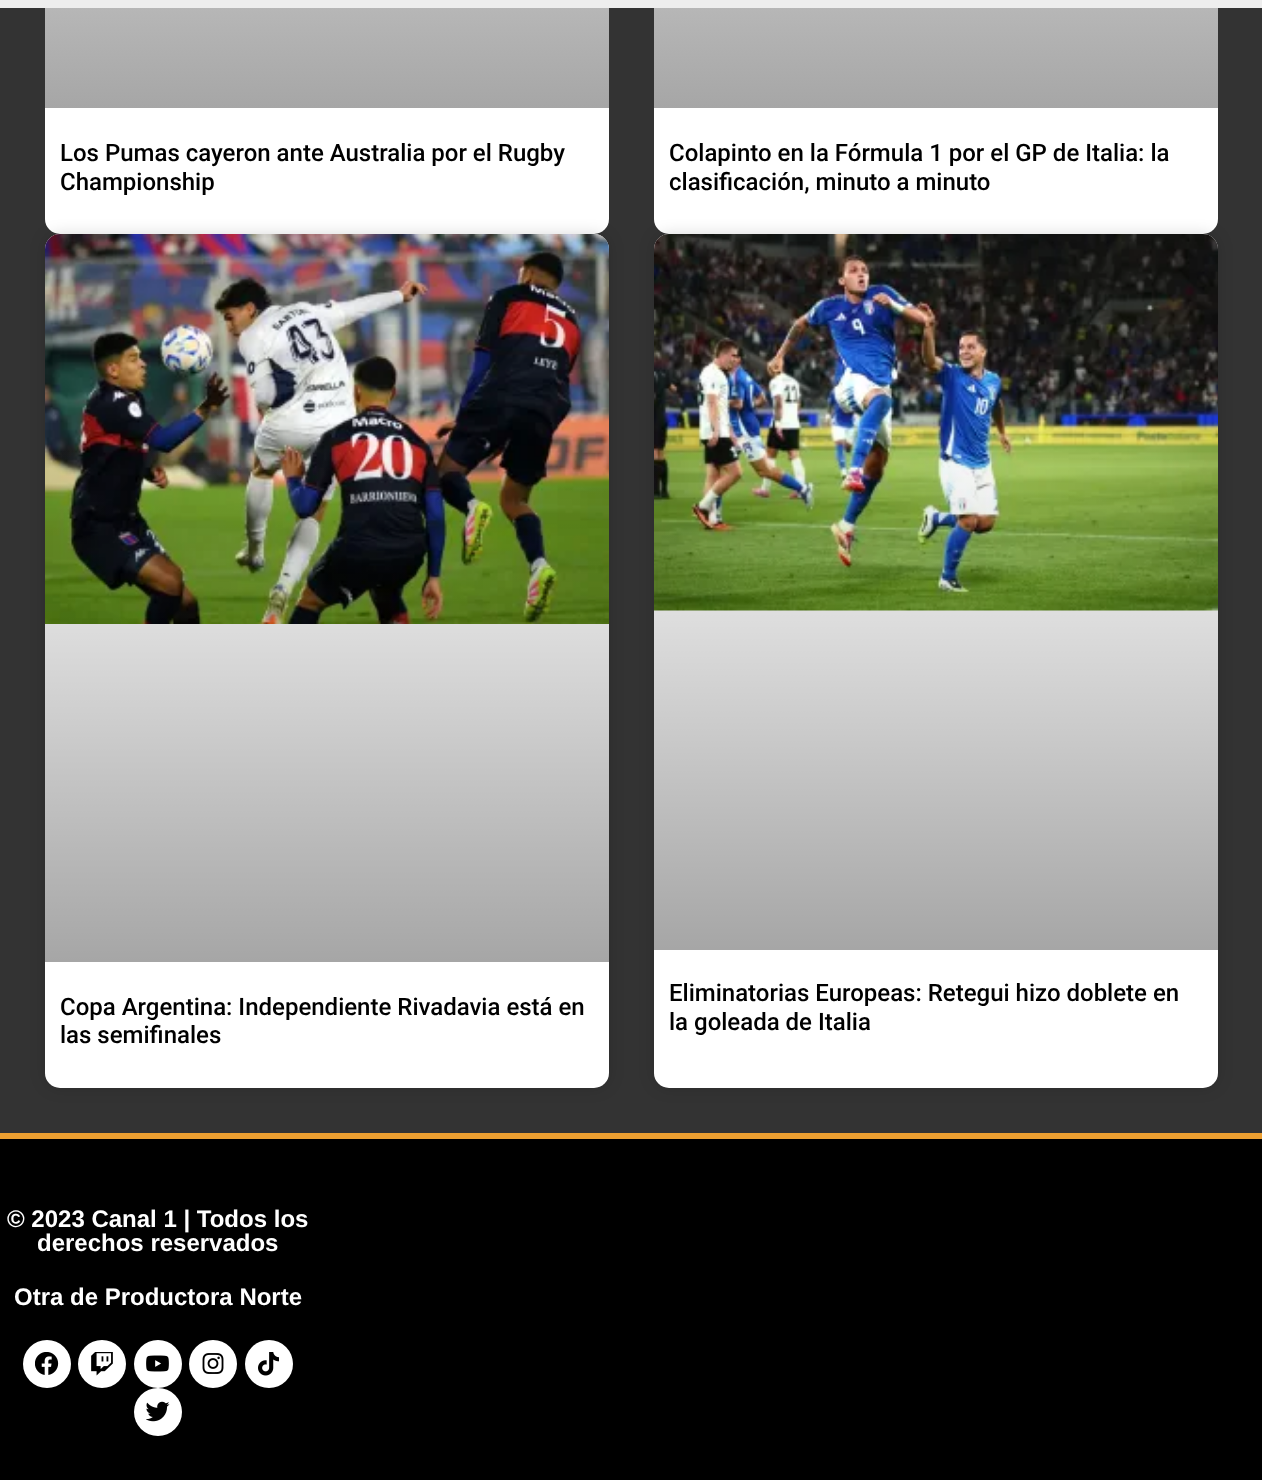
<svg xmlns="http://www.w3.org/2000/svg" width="1262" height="1480">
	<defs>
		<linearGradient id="g1" gradientUnits="userSpaceOnUse" x1="327" y1="108" x2="327" y2="-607"><stop offset="0" stop-color="#A6A6A6" /><stop offset="0.75" stop-color="#FFFFFF" /></linearGradient>
		<linearGradient id="g2" gradientUnits="userSpaceOnUse" x1="936" y1="108" x2="936" y2="-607"><stop offset="0" stop-color="#A6A6A6" /><stop offset="0.75" stop-color="#FFFFFF" /></linearGradient>
		<linearGradient id="g3" gradientUnits="userSpaceOnUse" x1="327" y1="962" x2="327" y2="234"><stop offset="0" stop-color="#000000" stop-opacity="0.35" /><stop offset="0.75" stop-color="#000000" stop-opacity="0" /></linearGradient>
		<linearGradient id="g4" gradientUnits="userSpaceOnUse" x1="936" y1="950" x2="936" y2="234"><stop offset="0" stop-color="#000000" stop-opacity="0.35" /><stop offset="0.75" stop-color="#000000" stop-opacity="0" /></linearGradient>
	</defs>
	<rect width="100%" height="100%" fill="#333333" />
	<rect x="45" y="-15" width="564" height="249" rx="15" fill="#FFFFFF" />
	<rect x="654" y="-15" width="564" height="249" rx="15" fill="#FFFFFF" />
	<rect x="0" y="0" width="1262" height="8" fill="#EEEEEE" />
	<rect x="45" y="8" width="564" height="100" fill="url(#g1)" />
	<g font-family="Roboto" font-size="24" font-weight="500" fill="#000000">
		<text x="60" y="161">Los Pumas cayeron ante Australia por el Rugby</text>
		<text x="60" y="190">Championship</text>
	</g>
	<rect x="654" y="8" width="564" height="100" fill="url(#g2)" />
	<g font-family="Roboto" font-size="24" font-weight="500" fill="#000000">
		<text x="669" y="161">Colapinto en la Fórmula 1 por el GP de Italia: la</text>
		<text x="669" y="190">clasificación, minuto a minuto</text>
	</g>
	<rect x="45" y="234" width="564" height="854" rx="15" fill="#000000" fill-opacity="0.15" filter="blur(7.5px)" />
	<rect x="45" y="234" width="564" height="854" rx="15" fill="#FFFFFF" />
	<image x="45" y="234" width="564" height="390" href="assets/img1.png" />
	<rect x="45" y="450" width="564" height="512" fill="url(#g3)" />
	<g font-family="Roboto" font-size="24" font-weight="500" fill="#000000">
		<text x="60" y="1015">Copa Argentina: Independiente Rivadavia está en</text>
		<text x="60" y="1043">las semifinales</text>
	</g>
	<rect x="654" y="234" width="564" height="854" rx="15" fill="#000000" fill-opacity="0.15" filter="blur(7.5px)" />
	<rect x="654" y="234" width="564" height="854" rx="15" fill="#FFFFFF" />
	<image x="654" y="234" width="564" height="377" href="assets/img2.png" />
	<rect x="654" y="446" width="564" height="504" fill="url(#g4)" />
	<g font-family="Roboto" font-size="24" font-weight="500" fill="#000000">
		<text x="669" y="1001">Eliminatorias Europeas: Retegui hizo doblete en</text>
		<text x="669" y="1030">la goleada de Italia</text>
	</g>
	<rect x="0" y="1139" width="1262" height="341" fill="#000000" />
	<rect x="0" y="1133" width="1262" height="6" fill="#EC9F31" />
	<g font-family="Liberation Sans" font-size="24" font-weight="700" fill="#FFFFFF">
		<text x="7" y="1227">© 2023 Canal 1 | Todos los</text>
		<text x="37" y="1251">derechos reservados</text>
		<text x="14" y="1305">Otra de Productora Norte</text>
	</g>
	<circle cx="47" cy="1364" r="24" fill="#FFFFFF" />
	<image x="35" y="1352" width="24" height="23" href="assets/img3.png" />
	<circle cx="102" cy="1364" r="24" fill="#FFFFFF" />
	<image x="91" y="1352" width="22" height="24" href="assets/img4.png" />
	<circle cx="158" cy="1364" r="24" fill="#FFFFFF" />
	<image x="146" y="1355" width="23" height="17" href="assets/img5.png" />
	<circle cx="213" cy="1364" r="24" fill="#FFFFFF" />
	<image x="202" y="1353" width="22" height="21" href="assets/img6.png" />
	<circle cx="269" cy="1364" r="24" fill="#FFFFFF" />
	<image x="258" y="1352" width="21" height="24" href="assets/img7.png" />
	<circle cx="158" cy="1412" r="24" fill="#FFFFFF" />
	<image x="146" y="1401" width="24" height="21" href="assets/img8.png" />
</svg>
